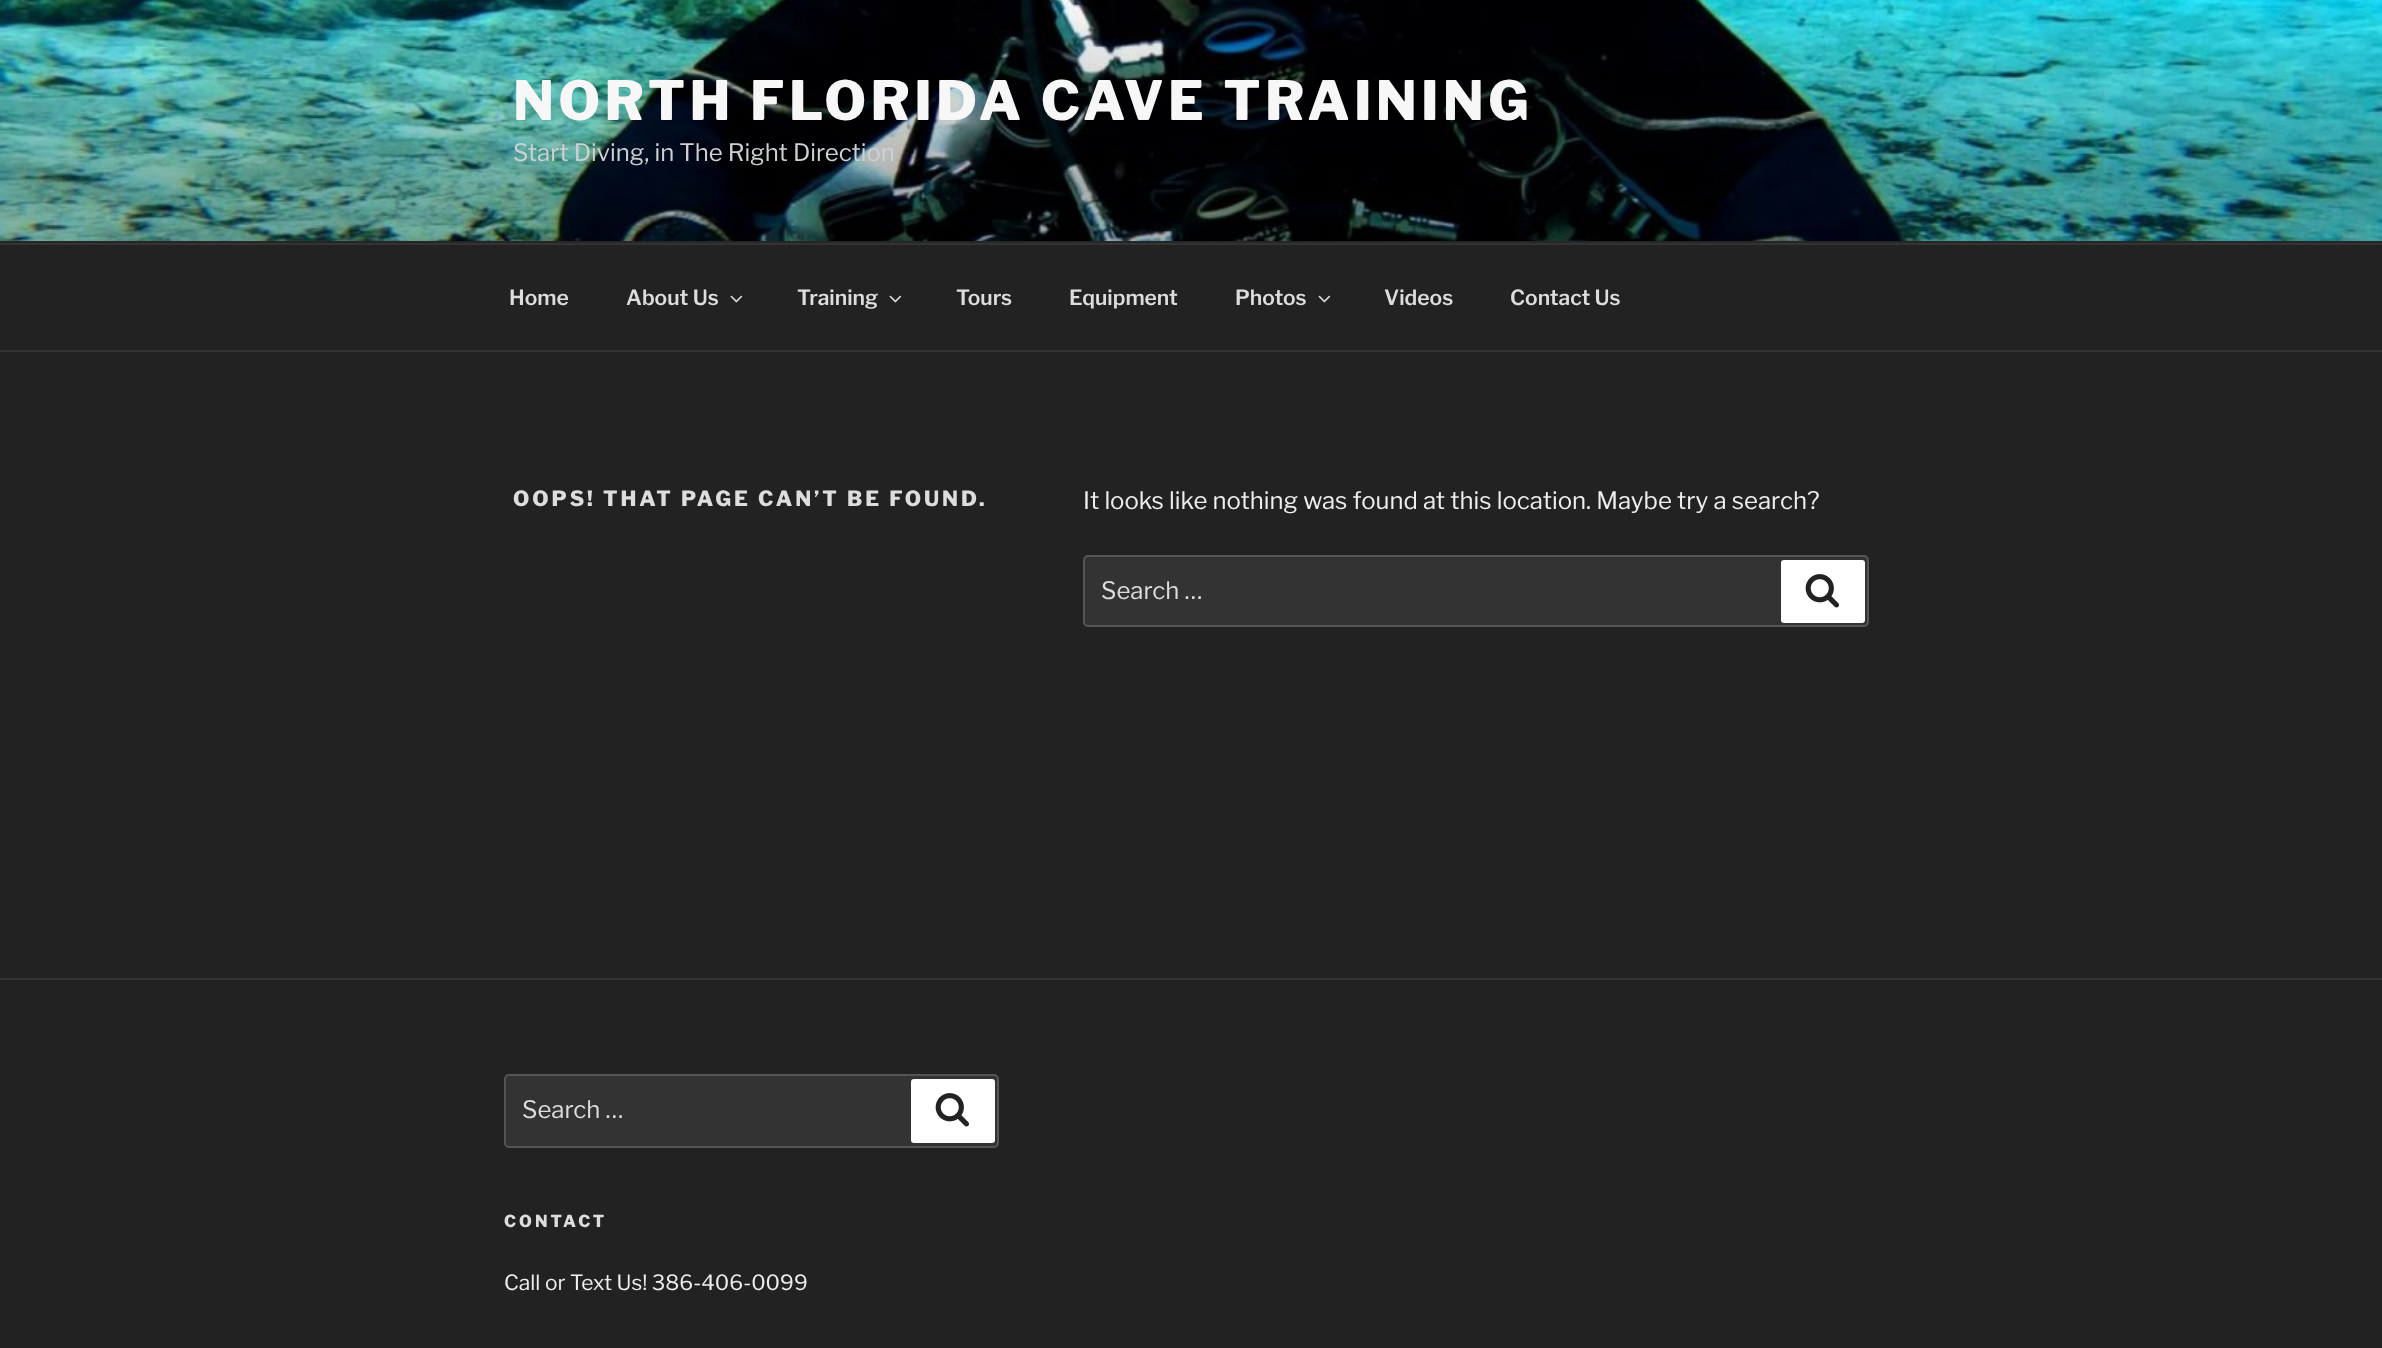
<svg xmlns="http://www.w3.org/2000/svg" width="2382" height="1348">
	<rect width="100%" height="100%" fill="#222222" />
	<rect x="0" y="241" width="2382" height="2" fill="#262626" />
	<image x="0" y="0" width="2382" height="241" href="assets/img1.png" />
	<text x="513" y="120" font-family="Libre Franklin" font-size="54" font-weight="100" letter-spacing="4.3" fill="#F7F7F7">NORTH FLORIDA CAVE TRAINING</text>
	<text x="513" y="161" font-family="'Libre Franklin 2'" font-size="24" font-weight="100" fill="#CDD1D2">Start Diving, in The Right Direction</text>
	<rect x="0" y="243" width="2382" height="2" fill="#333333" />
	<rect x="0" y="350" width="2382" height="2" fill="#333333" />
	<g font-family="'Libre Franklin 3'" font-size="21" font-weight="100" fill="#DDDDDD">
		<text x="509" y="305">Home</text>
		<text x="626" y="305">About Us</text>
	</g>
	<image x="730" y="295" width="13" height="8" href="assets/img2.png" />
	<text x="797" y="305" font-family="'Libre Franklin 3'" font-size="21" font-weight="100" fill="#DDDDDD">Training</text>
	<image x="889" y="295" width="13" height="8" href="assets/img2.png" />
	<g font-family="'Libre Franklin 3'" font-size="21" font-weight="100" fill="#DDDDDD">
		<text x="956" y="305">Tours</text>
		<text x="1069" y="305">Equipment</text>
		<text x="1235" y="305">Photos</text>
	</g>
	<image x="1318" y="295" width="13" height="8" href="assets/img2.png" />
	<g font-family="'Libre Franklin 3'" font-size="21" font-weight="100" fill="#DDDDDD">
		<text x="1384" y="305">Videos</text>
		<text x="1510" y="305">Contact Us</text>
	</g>
	<text x="513" y="506" font-family="Libre Franklin" font-size="21" font-weight="100" letter-spacing="2.95" fill="#DDDDDD">OOPS! THAT PAGE CAN’T BE FOUND.</text>
	<text x="1083" y="509" font-family="'Libre Franklin 2'" font-size="24" font-weight="100" fill="#EEEEEE">It looks like nothing was found at this location. Maybe try a search?</text>
	<rect x="1084" y="556" width="784" height="70" rx="4" fill="#333333" stroke="#555555" stroke-width="2" />
	<text x="1101" y="599" font-family="'Libre Franklin 2'" font-size="24" font-weight="100" fill="#DDDDDD">Search …</text>
	<rect x="1781" y="560" width="84" height="63" rx="3" fill="#FFFFFF" />
	<image x="1805" y="574" width="34" height="34" href="assets/img3.png" />
	<rect x="0" y="978" width="2382" height="2" fill="#333333" />
	<rect x="505" y="1075" width="493" height="72" rx="4" fill="#333333" stroke="#555555" stroke-width="2" />
	<text x="522" y="1118" font-family="'Libre Franklin 2'" font-size="24" font-weight="100" fill="#DDDDDD">Search …</text>
	<rect x="911" y="1079" width="84" height="64" rx="3" fill="#FFFFFF" />
	<image x="935" y="1093" width="34" height="34" href="assets/img3.png" />
	<text x="504" y="1227" font-family="Libre Franklin" font-size="16.5" font-weight="100" letter-spacing="3" fill="#DDDDDD">CONTACT</text>
	<text x="504" y="1290" font-family="'Libre Franklin 2'" font-size="21" font-weight="100" fill="#EEEEEE">Call or Text Us! 386-406-0099</text>
</svg>
